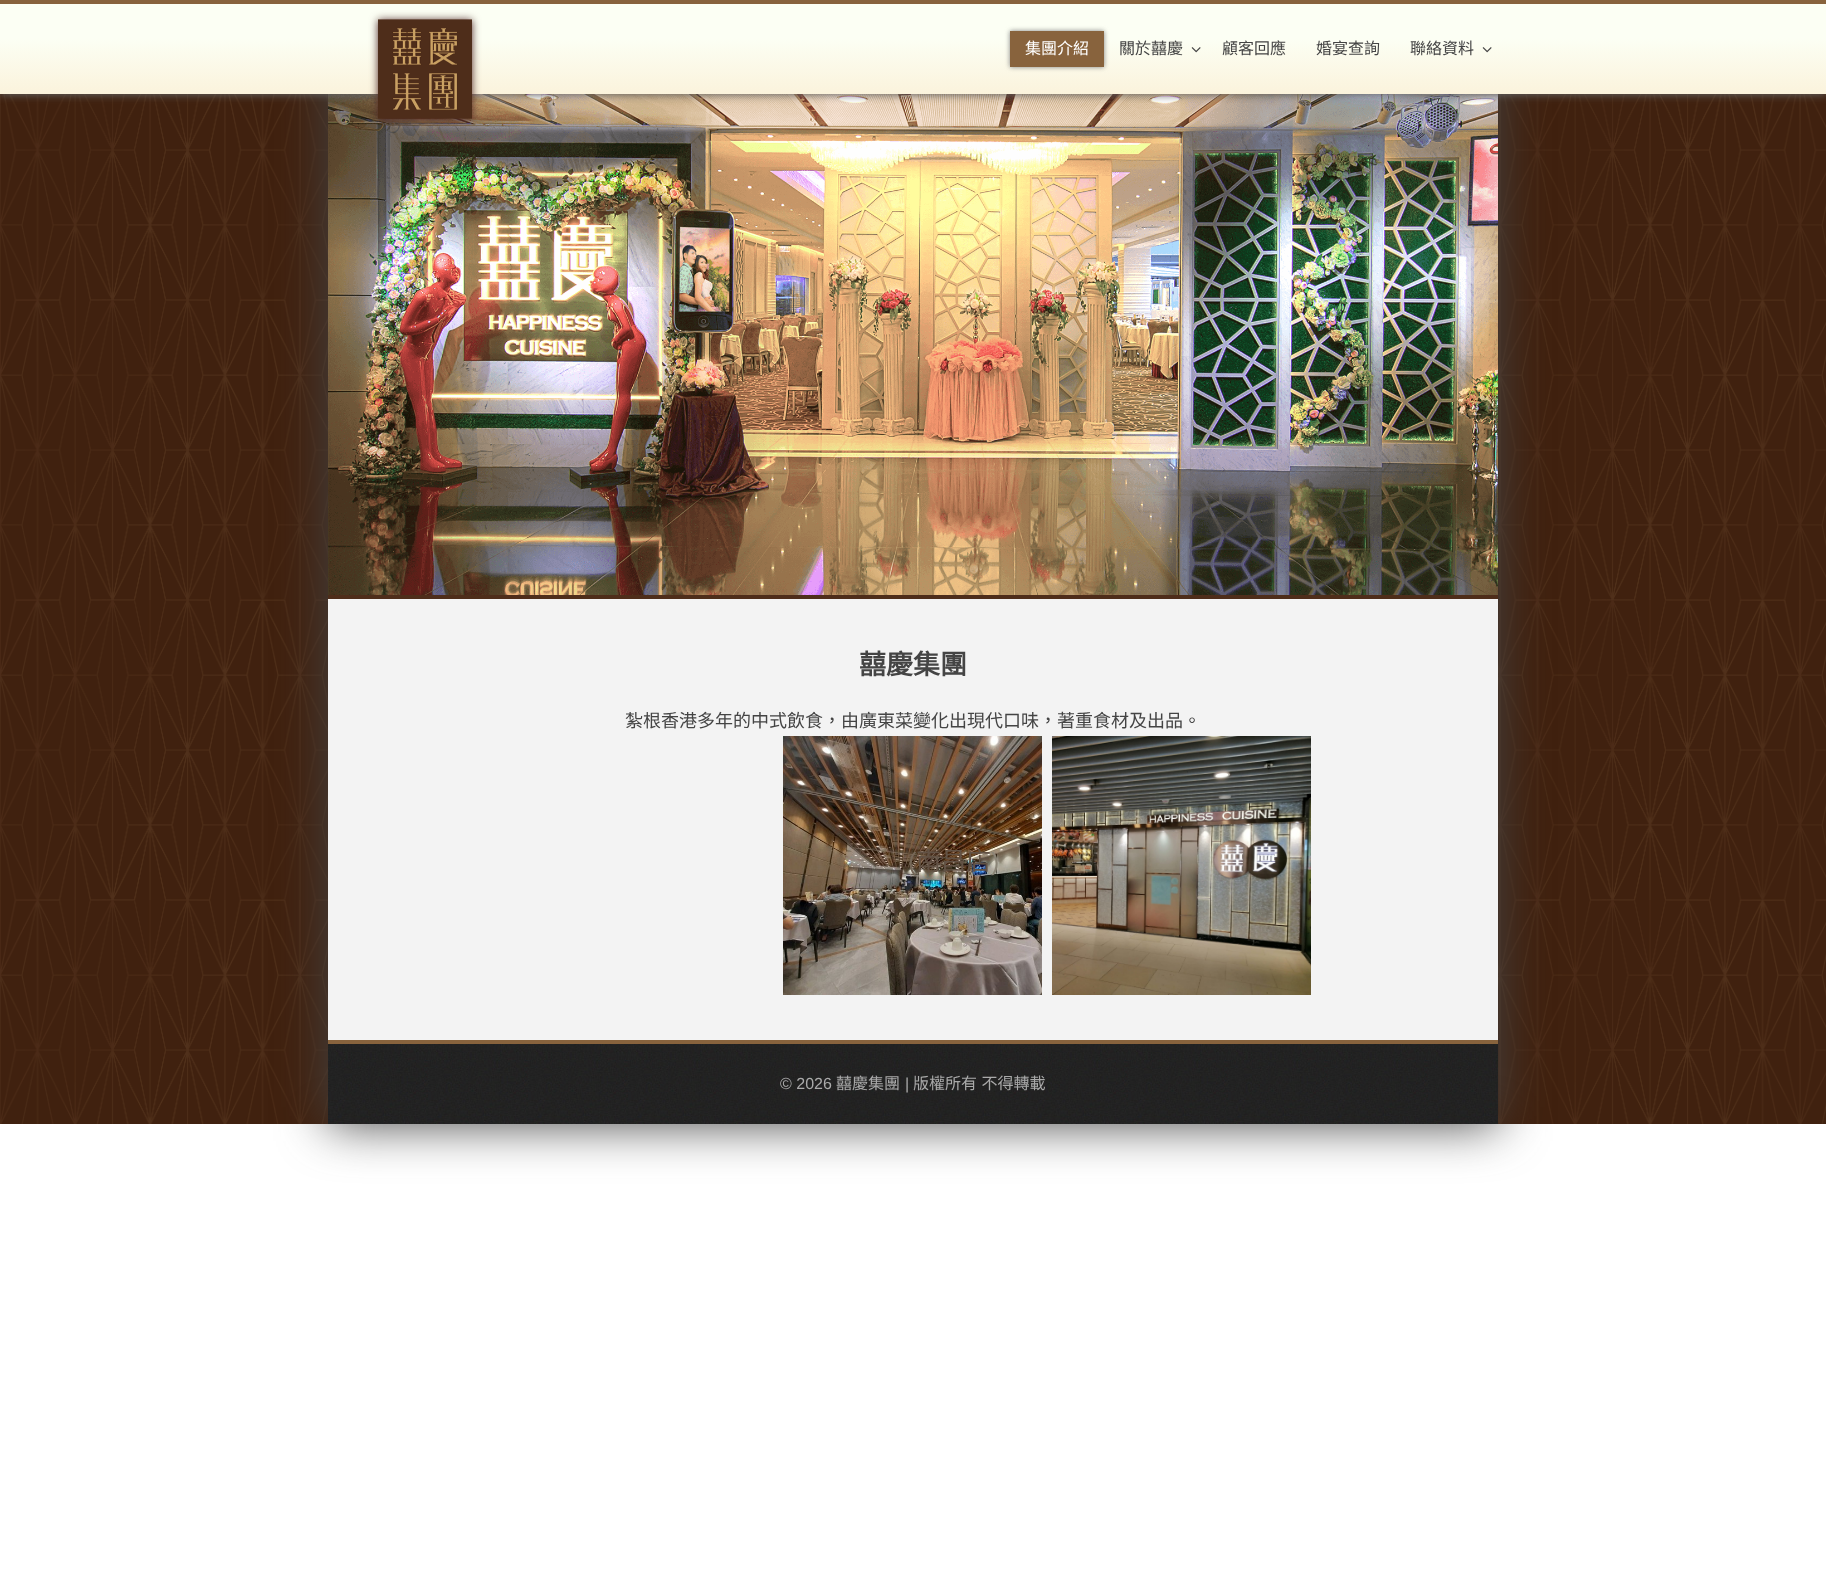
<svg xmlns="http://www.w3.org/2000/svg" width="1826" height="1579">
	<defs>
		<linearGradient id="g1" gradientUnits="userSpaceOnUse" x1="913" y1="4" x2="913" y2="94"><stop offset="0.38" stop-color="#FCFFF4" /><stop offset="1" stop-color="#FBF3DC" /></linearGradient>
	</defs>
	<rect width="100%" height="100%" fill="#FFFFFF" />
	<image x="0" y="94" width="1826" height="1030" href="assets/img1.png" />
	<rect x="328" y="0" width="1170" height="1124" fill="#444444" filter="blur(25px)" />
	<image x="328" y="94" width="1170" height="501" href="assets/img4.png" />
	<rect x="0" y="1" width="1826" height="94" fill="#626262" filter="blur(4px)" />
	<rect x="0" y="4" width="1826" height="90" fill="url(#g1)" />
	<rect x="0" y="0" width="1826" height="4" fill="#88633D" />
	<rect x="378" y="20" width="94" height="100" fill="#4F2626" filter="blur(4px)" />
	<image x="378" y="19" width="94" height="100" href="assets/img2.png" />
	<rect x="1010" y="31" width="94" height="36" fill="#808080" filter="blur(2.5px)" />
	<rect x="1010" y="31" width="94" height="36" fill="#88633D" />
	<text x="1025" y="54" font-family="Noto Sans CJK HK" font-size="16" fill="#FFFFFF">集團介紹</text>
	<text x="1119" y="54" font-family="Noto Sans CJK HK" font-size="16" fill="#444444">關於囍慶</text>
	<image x="1191" y="47" width="10" height="6" href="assets/img3.png" />
	<g font-family="Noto Sans CJK HK" font-size="16" fill="#444444">
		<text x="1222" y="54">顧客回應</text>
		<text x="1316" y="54">婚宴查詢</text>
		<text x="1410" y="54">聯絡資料</text>
	</g>
	<image x="1482" y="47" width="10" height="6" href="assets/img3.png" />
	<rect x="328" y="599" width="1170" height="441" fill="#F3F3F3" />
	<rect x="328" y="595" width="1170" height="4" fill="#4E2D1A" />
	<text x="859" y="674" font-family="Noto Sans CJK HK" font-size="27" font-weight="700" fill="#444444">囍慶集團</text>
	<text x="625" y="727" font-family="Noto Sans CJK HK" font-size="18" fill="#444444">紮根香港多年的中式飲食，由廣東菜變化出現代口味，著重食材及出品。</text>
	<image x="783" y="736" width="259" height="259" href="assets/img5.png" />
	<text x="908" y="870" font-family="Liberation Sans" font-size="25" fill="#766858">(</text>
	<text x="916" y="870" font-family="Noto Sans CJK HK" font-size="25" fill="#625245">南昌店</text>
	<text x="991" y="870" font-family="Liberation Sans" font-size="25" fill="#8B8577">)</text>
	<image x="1052" y="736" width="259" height="259" href="assets/img6.png" />
	<image x="328" y="1044" width="1170" height="80" href="assets/img7.png" />
	<rect x="328" y="1040" width="1170" height="4" fill="#88633D" />
	<text x="780" y="1089" font-family="Liberation Sans" font-size="16" fill="#AAAAAA">© 2026</text>
	<text x="836" y="1089" font-family="Noto Sans CJK HK" font-size="16" fill="#AAAAAA">囍慶集團</text>
	<text x="905" y="1089" font-family="Liberation Sans" font-size="16" fill="#AAAAAA">|</text>
	<text x="913" y="1089" word-spacing="1" font-family="Noto Sans CJK HK" font-size="16" fill="#AAAAAA">版權所有 不得轉載</text>
</svg>
